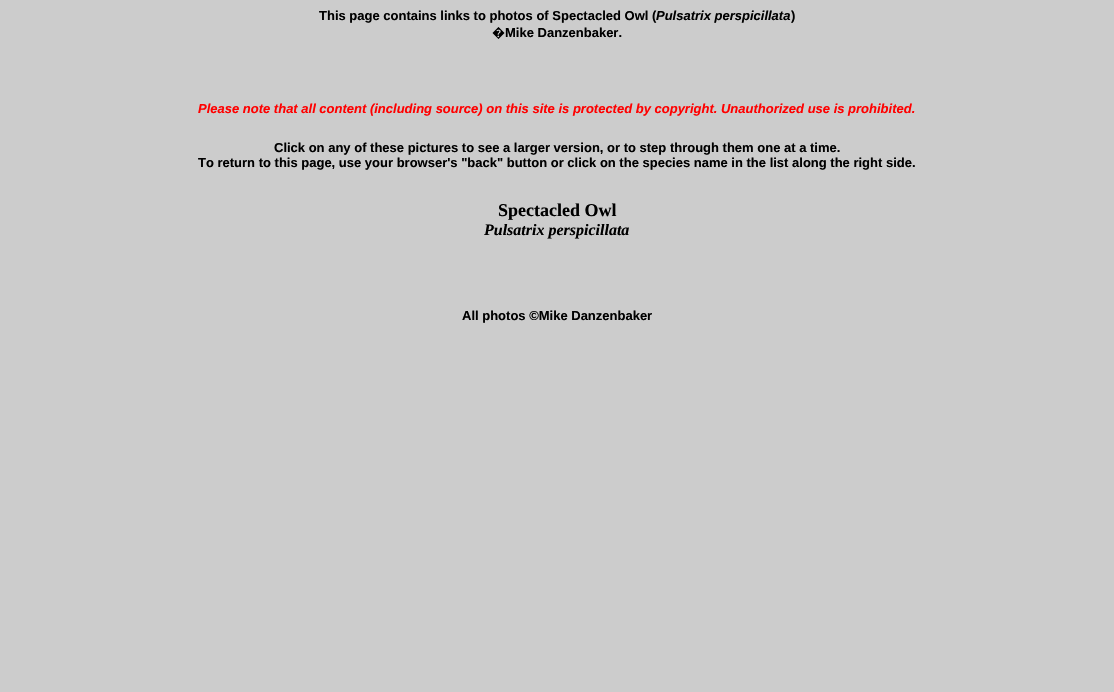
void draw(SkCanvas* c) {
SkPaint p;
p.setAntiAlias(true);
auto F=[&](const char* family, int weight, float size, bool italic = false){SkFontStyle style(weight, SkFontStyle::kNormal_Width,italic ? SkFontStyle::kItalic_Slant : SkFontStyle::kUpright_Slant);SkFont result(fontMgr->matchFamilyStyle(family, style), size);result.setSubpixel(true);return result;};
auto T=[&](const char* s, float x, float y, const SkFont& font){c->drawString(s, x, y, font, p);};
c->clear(0xffcccccc);
auto f1 = F("Liberation Sans",700,13);
p.setColor(0xff000000);
T("This page contains links to photos of Spectacled Owl (",319,20,f1);
auto f2 = F("Liberation Sans",700,13,true);
T("Pulsatrix perspicillata",656,20,f2);
T(")",791,20,f1);
auto f3 = F("Noto Sans",700,13);
T("�",492,37,f3);
T("Mike Danzenbaker.",505,37,f1);
p.setColor(0xffff0000);
T("Please note that all content (including source) on this site is protected by copyright. Unauthorized use is prohibited.",198,113,f2);
p.setColor(0xff000000);
T("Click on any of these pictures to see a larger version, or to step through them one at a time.",274,152,f1);
T("To return to this page, use your browser's \"back\" button or click on the species name in the list along the right side.",198,167,f1);
auto f4 = F("Liberation Serif",700,18);
T("Spectacled Owl",498,216,f4);
auto f5 = F("Liberation Serif",700,16,true);
T("Pulsatrix perspicillata",484,235,f5);
T("All photos ©Mike Danzenbaker",462,320,f1);
}
